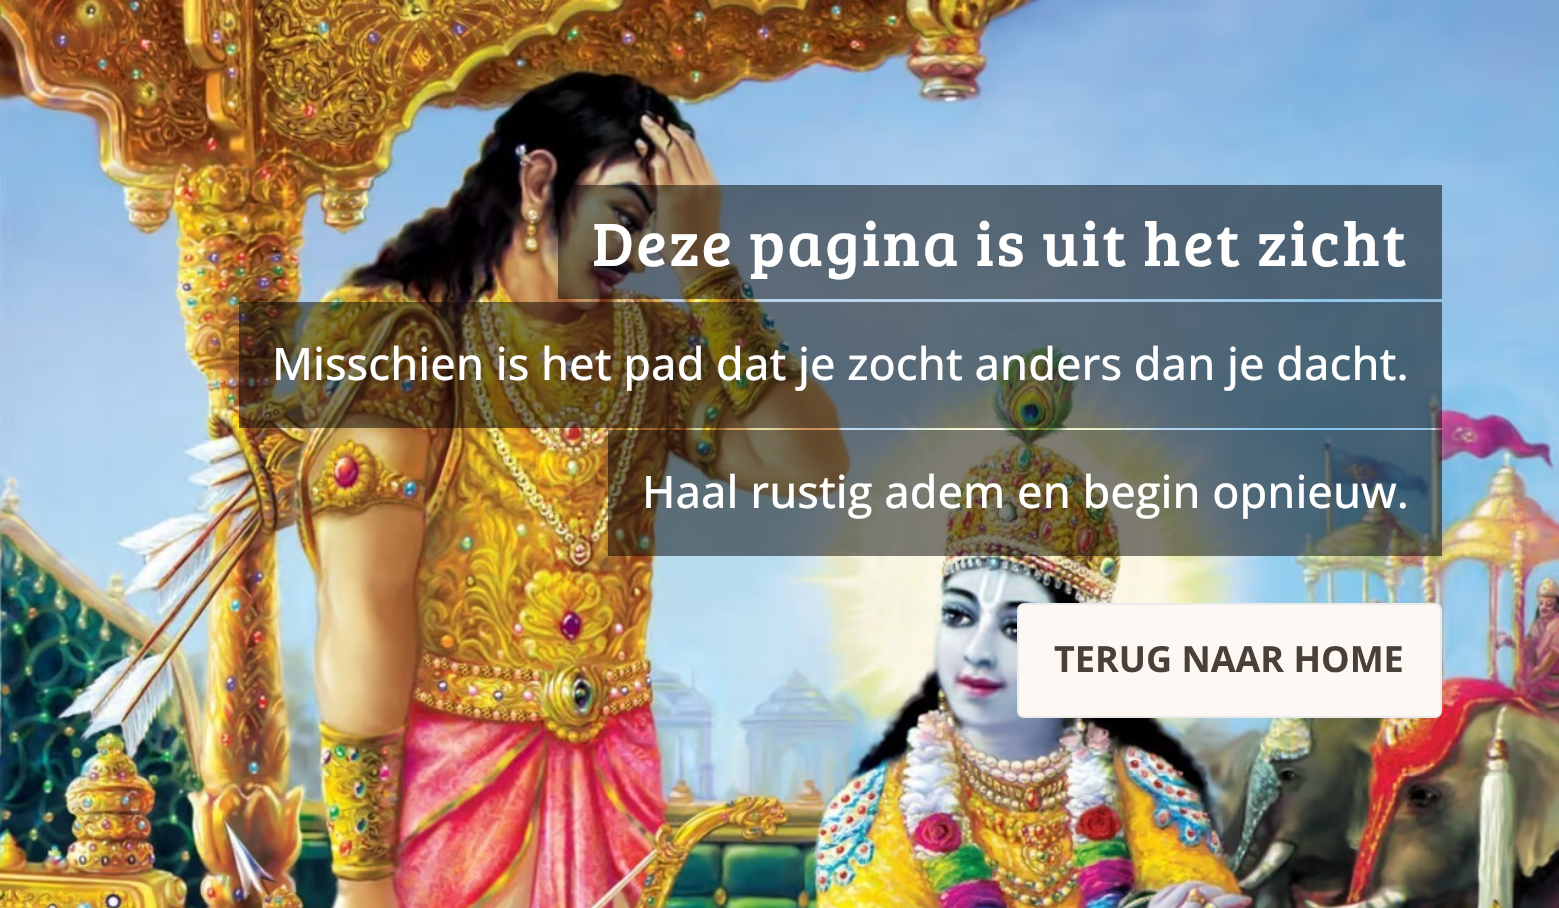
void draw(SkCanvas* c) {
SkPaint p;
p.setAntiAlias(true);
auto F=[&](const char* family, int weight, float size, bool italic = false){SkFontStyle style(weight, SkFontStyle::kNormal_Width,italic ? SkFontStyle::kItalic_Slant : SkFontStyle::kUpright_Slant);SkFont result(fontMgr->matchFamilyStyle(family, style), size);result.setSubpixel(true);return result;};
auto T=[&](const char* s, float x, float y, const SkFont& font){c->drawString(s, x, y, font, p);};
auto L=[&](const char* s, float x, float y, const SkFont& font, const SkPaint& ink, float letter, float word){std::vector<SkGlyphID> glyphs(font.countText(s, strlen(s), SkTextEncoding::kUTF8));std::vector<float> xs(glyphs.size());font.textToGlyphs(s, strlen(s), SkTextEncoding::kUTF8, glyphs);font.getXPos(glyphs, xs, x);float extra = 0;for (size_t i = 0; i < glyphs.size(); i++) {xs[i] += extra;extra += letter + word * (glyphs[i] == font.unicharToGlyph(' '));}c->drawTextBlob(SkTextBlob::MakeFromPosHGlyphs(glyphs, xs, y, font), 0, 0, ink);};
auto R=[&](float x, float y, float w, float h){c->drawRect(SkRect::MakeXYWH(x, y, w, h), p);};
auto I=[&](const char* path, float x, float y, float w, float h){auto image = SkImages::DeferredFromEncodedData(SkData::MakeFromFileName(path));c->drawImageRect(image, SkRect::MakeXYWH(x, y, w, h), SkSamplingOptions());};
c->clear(0xffffffff);
I("1.png",0,0,1559,908);
p.setColor(0x80000000);
R(558,185,884,114);
auto f1 = F("Bree Serif",400,63);
p.setColor(0xffffffff);
L("Deze pagina is uit het zicht",592,266,f1,p,2.25,0);
p.setColor(0x80000000);
R(239,302,1203,126);
auto f2 = F("Open Sans",500,45);
p.setColor(0xffffffff);
T("Misschien is het pad dat je zocht anders dan je dacht.",272,380,f2);
p.setColor(0x80000000);
R(608,430,834,126);
p.setColor(0xffffffff);
T("Haal rustig adem en begin opnieuw.",642,508,f2);
p.setColor(0xfffdf8f4);
c->drawRoundRect(SkRect::MakeXYWH(1018,604,423,113),6,6,p);
p.setStroke(true);
p.setStrokeWidth(2);
p.setColor(0xffebebeb);
c->drawRoundRect(SkRect::MakeXYWH(1018,604,423,113),6,6,p);
auto f3 = F("Open Sans",700,36);
p.setStroke(false);
p.setColor(0xff4a403a);
T("TERUG NAAR HOME",1054,672,f3);
}
